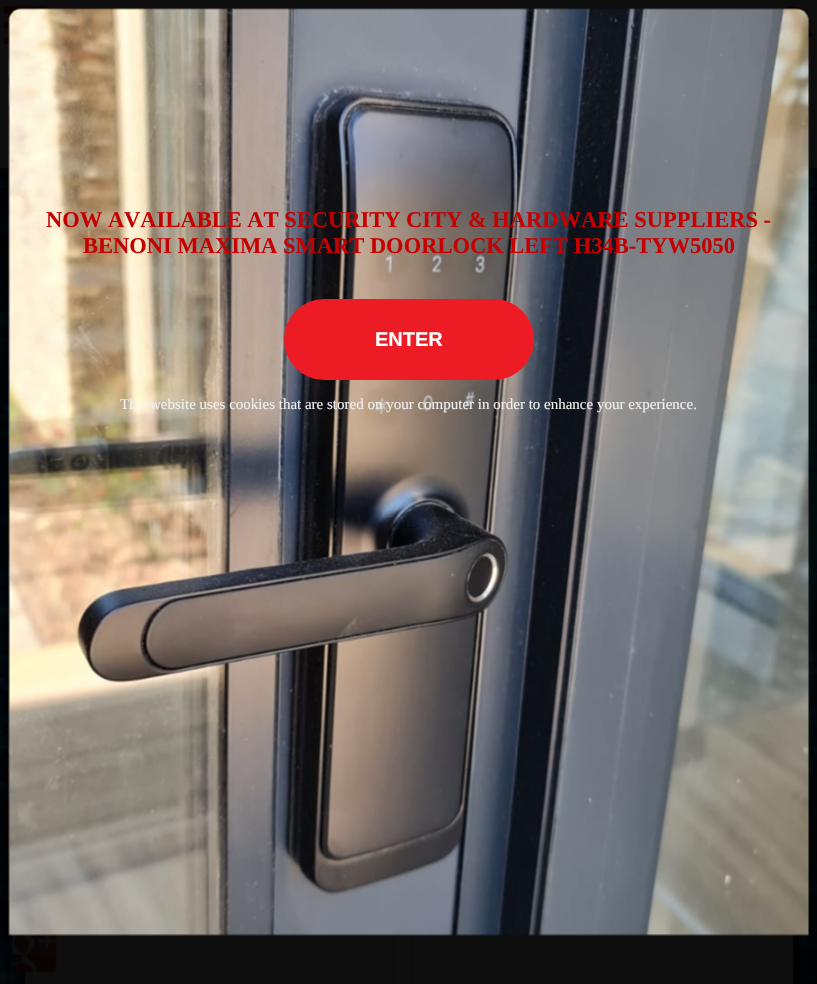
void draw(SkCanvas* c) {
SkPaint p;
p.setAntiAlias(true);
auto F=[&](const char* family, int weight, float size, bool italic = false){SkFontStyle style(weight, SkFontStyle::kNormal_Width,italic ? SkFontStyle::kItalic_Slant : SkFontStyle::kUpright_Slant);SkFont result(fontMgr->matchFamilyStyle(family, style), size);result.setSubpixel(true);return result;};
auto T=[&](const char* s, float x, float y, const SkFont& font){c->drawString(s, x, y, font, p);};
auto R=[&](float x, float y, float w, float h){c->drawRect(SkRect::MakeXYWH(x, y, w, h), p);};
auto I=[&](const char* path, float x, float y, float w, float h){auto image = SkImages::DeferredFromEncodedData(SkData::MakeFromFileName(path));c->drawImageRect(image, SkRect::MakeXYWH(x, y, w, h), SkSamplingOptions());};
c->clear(0xff0d0d0d);
I("1.png",0,166,817,818);
p.setColor(0xff0d0d0d);
R(25,167,768,817);
p.setStroke(true);
p.setStrokeWidth(1);
p.setColor(0xff0a0a0a);
c->drawRect(SkRect::MakeXYWH(154.5,-.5,239,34),p);
c->drawRect(SkRect::MakeXYWH(411.5,-.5,239,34),p);
c->drawRect(SkRect::MakeXYWH(154.5,751.5,239,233),p);
c->drawRect(SkRect::MakeXYWH(411.5,751.5,239,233),p);
p.setStroke(false);
p.setColor(0xf20d0d0d);
R(154,0,497,34);
I("2.png",3,5,45,40);
I("3.png",785,6,28,32);
I("5.png",12,934,45,39);
I("4.png",8,8,802,928);
auto f1 = F("Liberation Serif",700,22.5);
p.setColor(0xffc60000);
T("NOW AVAILABLE AT SECURITY CITY & HARDWARE SUPPLIERS -",46,227,f1);
T("BENONI MAXIMA SMART DOORLOCK LEFT H34B-TYW5050",83,253,f1);
p.setColor(0xffed1c24);
c->drawRoundRect(SkRect::MakeXYWH(285.5,300.5,247,78),39,39,p);
p.setStroke(true);
p.setStrokeWidth(3);
c->drawRoundRect(SkRect::MakeXYWH(285.5,300.5,247,78),39,39,p);
auto f2 = F("Liberation Sans",700,20);
p.setStroke(false);
p.setColor(0xffffffff);
T("ENTER",375,346,f2);
auto f3 = F("Liberation Serif",400,15);
p.setColor(0xfff0f0f0);
T("Th",120,409,f3);
T("website uses cookies that are stored on your computer in order to enhance your experience.",150,409,f3);
}
